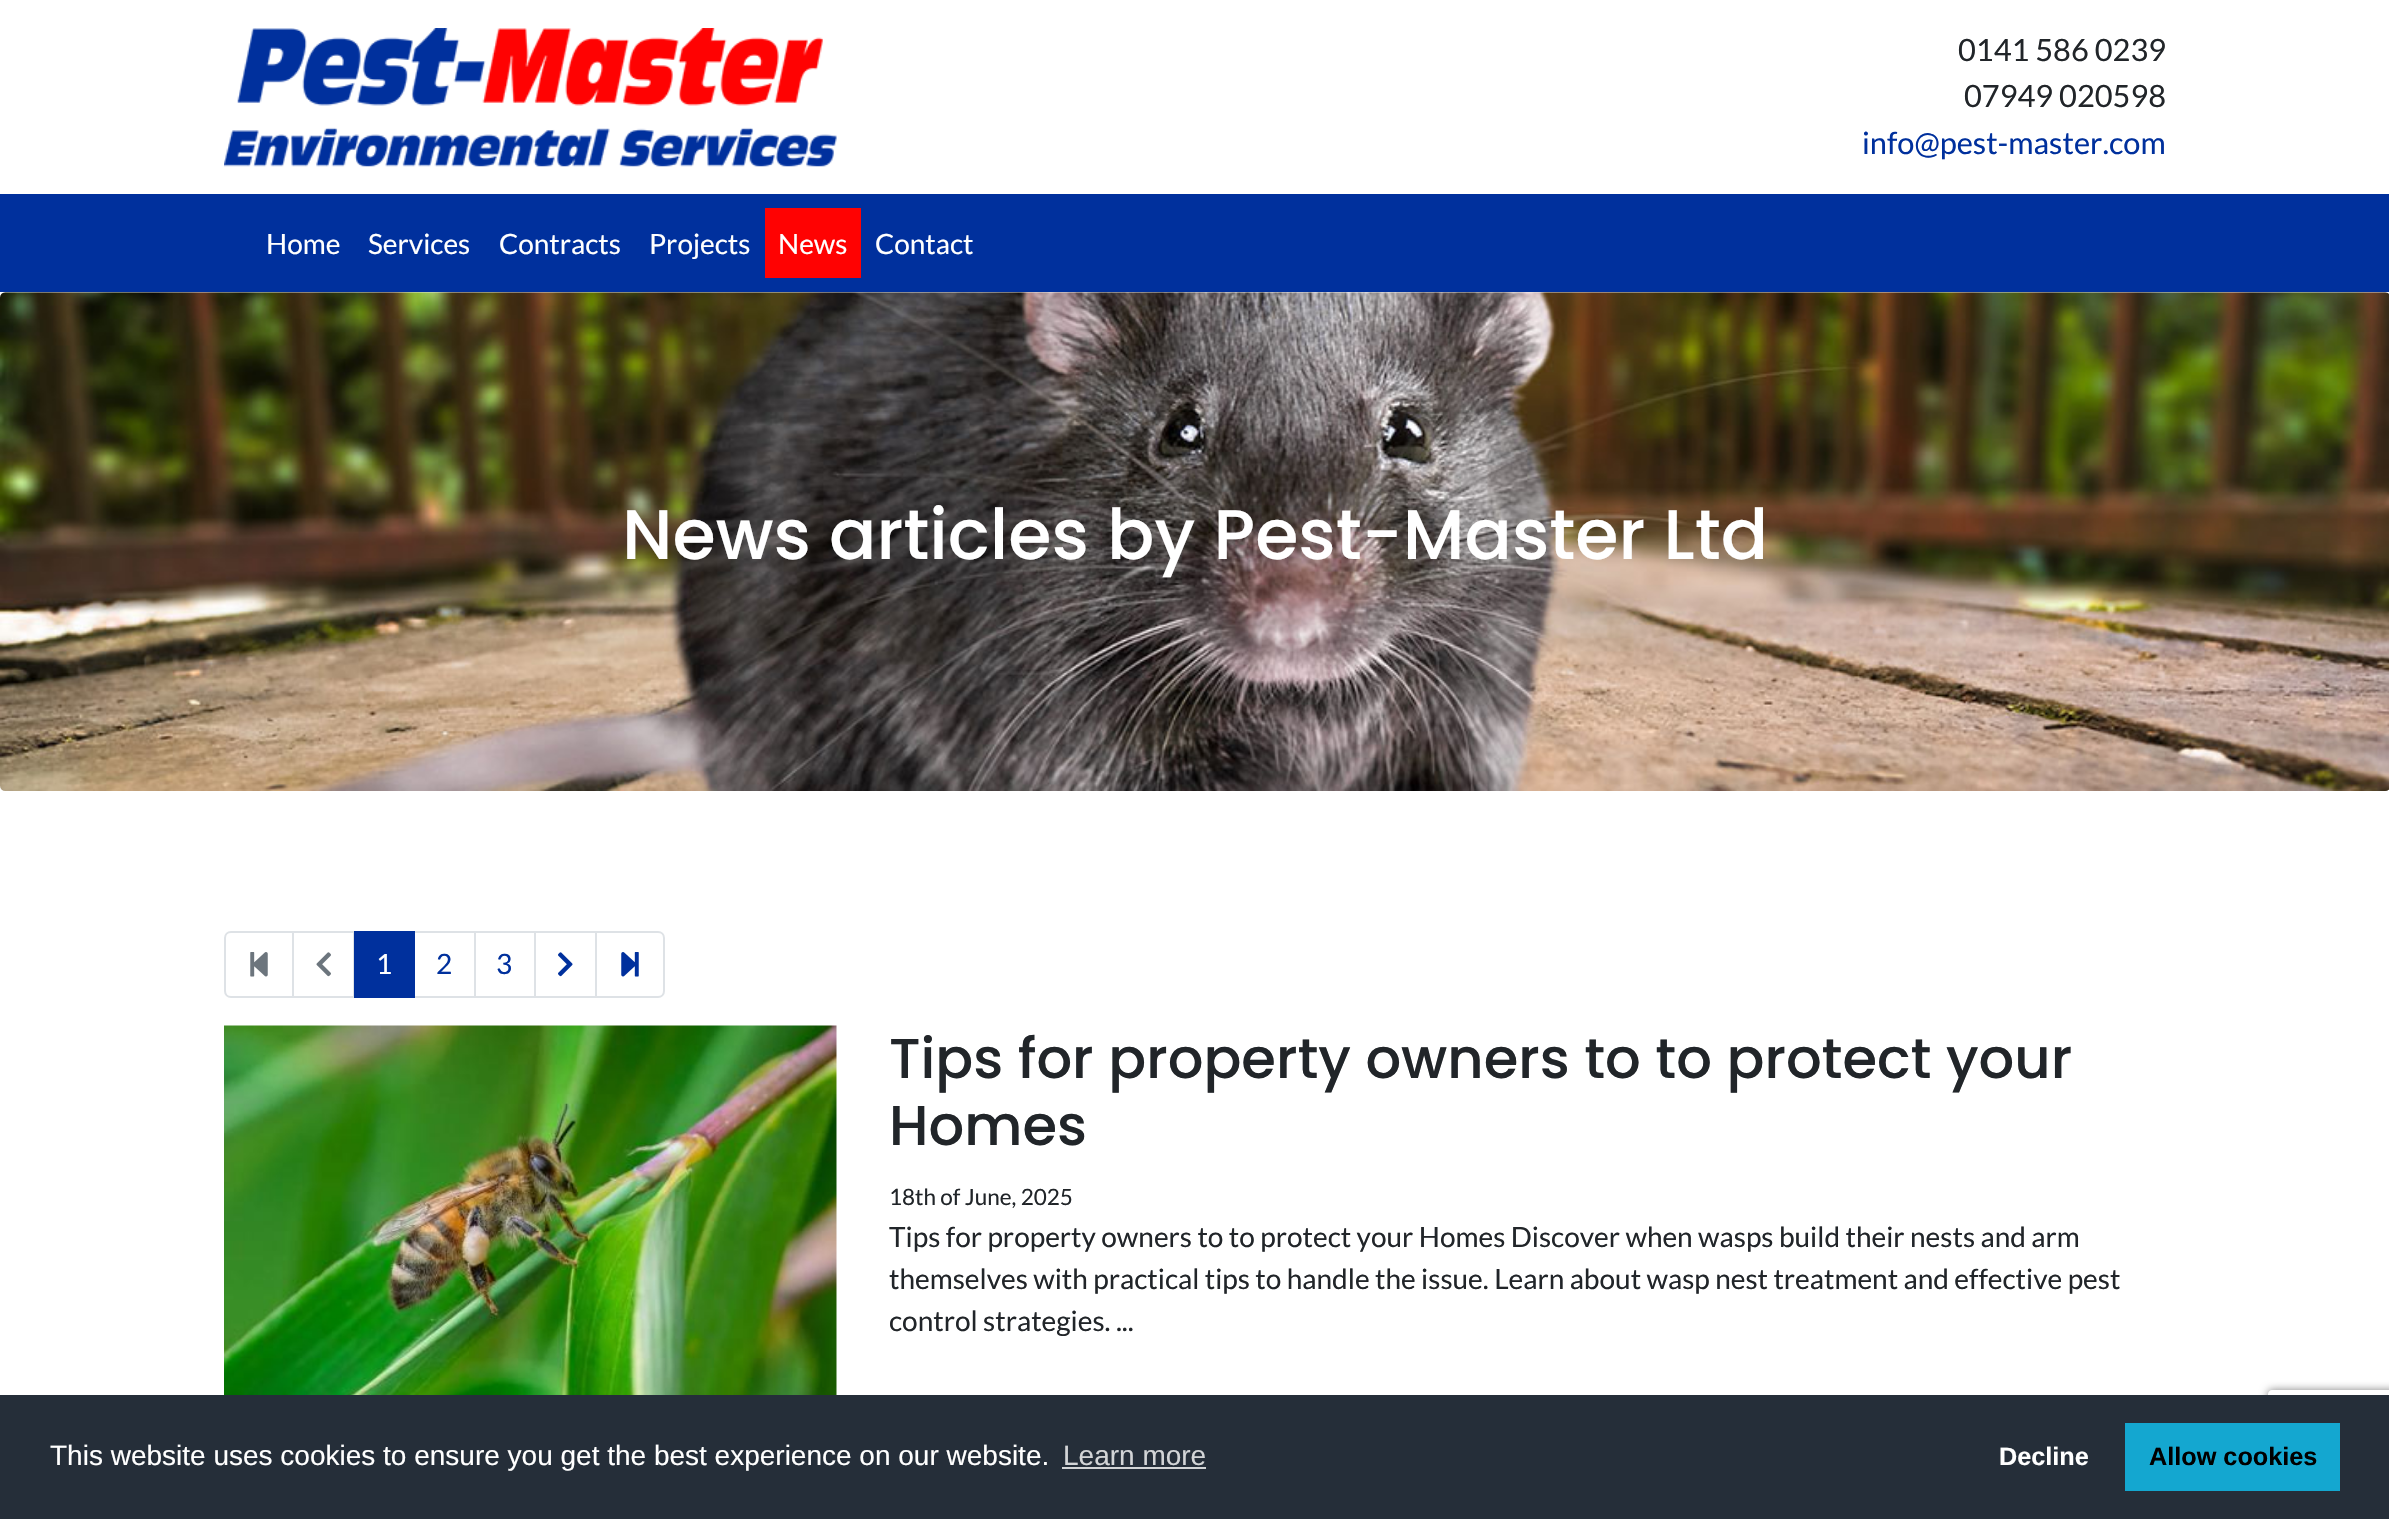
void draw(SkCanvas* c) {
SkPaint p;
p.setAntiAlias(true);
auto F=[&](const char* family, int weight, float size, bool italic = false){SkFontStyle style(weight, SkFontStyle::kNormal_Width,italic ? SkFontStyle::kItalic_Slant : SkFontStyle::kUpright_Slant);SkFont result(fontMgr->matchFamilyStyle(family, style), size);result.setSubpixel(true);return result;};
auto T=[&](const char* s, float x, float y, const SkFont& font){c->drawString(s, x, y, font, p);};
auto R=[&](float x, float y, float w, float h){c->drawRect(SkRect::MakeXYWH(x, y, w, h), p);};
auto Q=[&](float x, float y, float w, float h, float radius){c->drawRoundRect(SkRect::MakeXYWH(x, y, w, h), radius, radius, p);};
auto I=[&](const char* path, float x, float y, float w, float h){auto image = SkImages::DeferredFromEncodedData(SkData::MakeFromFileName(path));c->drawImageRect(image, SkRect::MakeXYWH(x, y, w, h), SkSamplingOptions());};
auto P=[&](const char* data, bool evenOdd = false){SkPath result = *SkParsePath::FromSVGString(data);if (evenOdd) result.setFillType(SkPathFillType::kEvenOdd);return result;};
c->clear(0xffffffff);
I("1.png",224,28,613,139);
auto f1 = F("Lato",400,30.75);
p.setColor(0xff212529);
T("0141 586 0239",1958,61,f1);
T("07949 020598",1964,107,f1);
p.setColor(0xff00309d);
T("info@pest-master.com",1862,154,f1);
R(0,194,2389,98);
auto f2 = F("Lato",400,28);
p.setColor(0xffffffff);
T("Home",266,254,f2);
T("Services",368,254,f2);
T("Contracts",499,254,f2);
T("Projects",649,254,f2);
p.setColor(0xffff0202);
R(765,208,96,70);
p.setColor(0xffffffff);
T("News",778,254,f2);
T("Contact",875,254,f2);
p.setColor(0xffeeeeee);
Q(0,292,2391,499,7);
I("2.png",0,292,2389,499);
auto f3 = F("Poppins",500,70);
p.setColor(0xffffffff);
T("News articles by Pest-Master Ltd",622,559,f3);
p.setStroke(true);
p.setStrokeWidth(2);
p.setColor(0xffdee2e6);
c->drawPath(P("M231 932h62v65h-62c-3.5 0-6-2.5-6-6v-53c0-3.5 2.5-6 6-6z"),p);
I("3.png",250,952,18,25);
c->drawRect(SkRect::MakeXYWH(293,932,61,65),p);
I("4.png",316,952,15,25);
c->drawRect(SkRect::MakeXYWH(414,932,61,65),p);
p.setStroke(false);
p.setColor(0xff00309d);
R(354,931,61,67);
p.setColor(0xffffffff);
T("1",376,974,f2);
p.setColor(0xff00309d);
T("2",436,974,f2);
p.setStroke(true);
p.setColor(0xffdee2e6);
c->drawRect(SkRect::MakeXYWH(475,932,60,65),p);
p.setStroke(false);
p.setColor(0xff00309d);
T("3",496,974,f2);
p.setStroke(true);
p.setColor(0xffdee2e6);
c->drawRect(SkRect::MakeXYWH(535,932,61,65),p);
I("5.png",558,952,15,25);
p.setStroke(false);
p.setColor(0xffffffff);
c->drawPath(P("M596 932h62c3.5 0 6 2.5 6 6v53c0 3.5-2.5 6-6 6h-62z"),p);
p.setStroke(true);
p.setColor(0xffdee2e6);
c->drawPath(P("M596 932h62c3.5 0 6 2.5 6 6v53c0 3.5-2.5 6-6 6h-62z"),p);
I("6.png",621,952,18,25);
I("7.png",224,1025,613,370);
auto f4 = F("Poppins",500,56);
p.setStroke(false);
p.setColor(0xff212529);
T("Tips for property owners to to protect your",889,1078,f4);
T("Homes",889,1145,f4);
auto f5 = F("Lato",400,22.5);
T("18th of June, 2025",889,1205,f5);
T("Tips for property owners to to protect your Homes Discover when wasps build their nests and arm",889,1247,f2);
T("themselves with practical tips to handle the issue. Learn about wasp nest treatment and effective pest",889,1289,f2);
T("control strategies. ...",889,1331,f2);
c->save();
c->clipPath(P("M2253 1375h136v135h-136zm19 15h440c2 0 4 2 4 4v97c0 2-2 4-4 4h-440c-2 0-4-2-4-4v-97c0-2 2-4 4-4z",true),true);
p.setColor(0xff808080);
p.setMaskFilter(SkMaskFilter::MakeBlur(kNormal_SkBlurStyle, 4.5));
c->drawRoundRect(SkRect::MakeXYWH(2268,1390,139,105),4,4,p);
p.setMaskFilter(nullptr);
c->restore();
p.setColor(0xff252e39);
R(0,1395,2389,124);
auto f6 = F("Liberation Sans",400,28);
p.setColor(0xffffffff);
T("This website uses cookies to ensure you get the best experience on our website.",50,1465,f6);
p.setColor(0xffd3d5d7);
T("Learn more",1063,1465,f6);
R(1062,1467,144,2);
auto f7 = F("Liberation Sans",700,25.25);
p.setColor(0xffffffff);
T("Decline",1999,1465,f7);
p.setColor(0xff14a7d0);
R(2125,1423,215,68);
p.setColor(0xff000000);
T("Allow cookies",2149,1465,f7);
}
